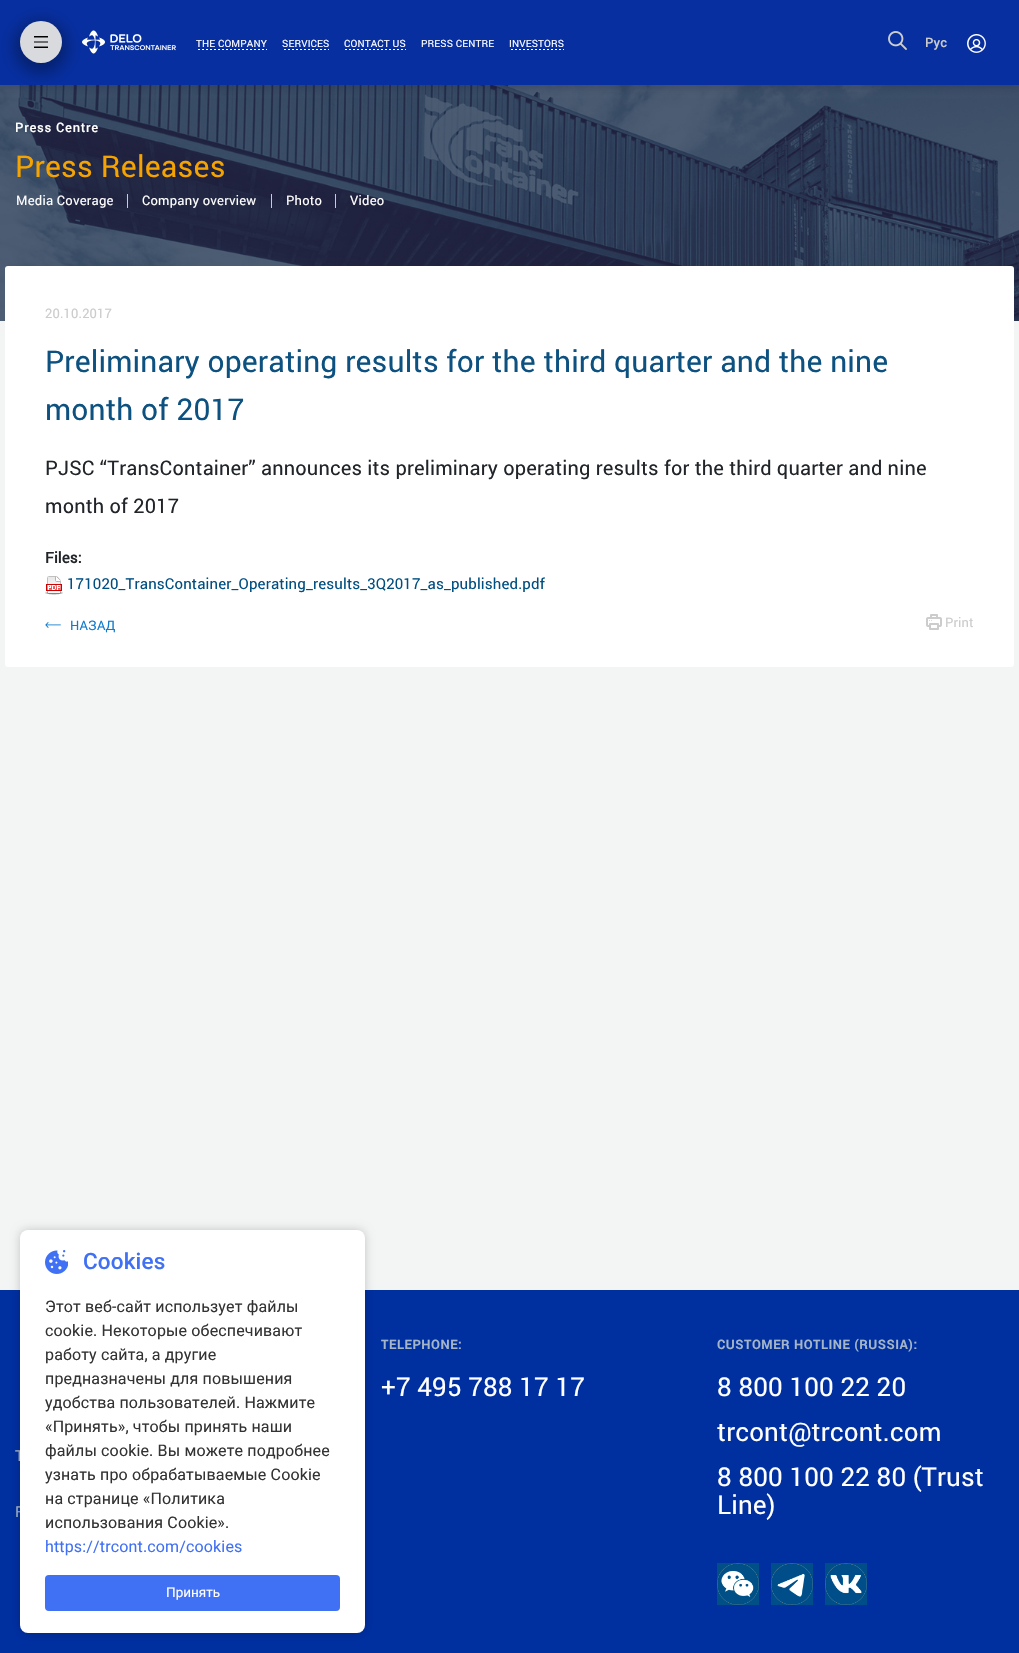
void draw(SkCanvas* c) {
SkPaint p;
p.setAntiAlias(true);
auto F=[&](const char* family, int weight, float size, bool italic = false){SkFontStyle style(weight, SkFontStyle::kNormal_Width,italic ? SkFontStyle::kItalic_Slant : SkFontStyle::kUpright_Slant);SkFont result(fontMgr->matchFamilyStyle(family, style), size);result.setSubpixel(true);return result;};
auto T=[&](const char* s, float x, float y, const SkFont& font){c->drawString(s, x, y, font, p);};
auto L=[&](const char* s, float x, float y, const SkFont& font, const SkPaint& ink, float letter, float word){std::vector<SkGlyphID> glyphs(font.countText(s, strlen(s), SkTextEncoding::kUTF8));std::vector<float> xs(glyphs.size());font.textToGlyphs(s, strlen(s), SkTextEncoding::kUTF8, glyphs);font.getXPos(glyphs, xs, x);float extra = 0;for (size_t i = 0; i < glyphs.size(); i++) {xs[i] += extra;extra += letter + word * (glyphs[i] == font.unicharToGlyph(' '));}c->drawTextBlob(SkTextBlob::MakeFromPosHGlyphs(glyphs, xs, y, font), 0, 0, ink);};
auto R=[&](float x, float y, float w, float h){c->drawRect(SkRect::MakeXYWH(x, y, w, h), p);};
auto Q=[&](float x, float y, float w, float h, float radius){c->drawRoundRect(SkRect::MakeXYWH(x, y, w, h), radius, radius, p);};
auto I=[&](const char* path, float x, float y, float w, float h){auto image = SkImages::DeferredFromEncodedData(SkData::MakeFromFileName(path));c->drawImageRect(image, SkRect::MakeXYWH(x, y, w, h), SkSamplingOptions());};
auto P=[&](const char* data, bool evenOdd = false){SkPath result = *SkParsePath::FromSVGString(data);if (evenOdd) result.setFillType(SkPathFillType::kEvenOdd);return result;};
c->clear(0xfff3f4f4);
I("1.png",0,85,1019,236);
p.setColor(0x331e1f3c);
p.setMaskFilter(SkMaskFilter::MakeBlur(kNormal_SkBlurStyle, 3.5));
c->drawRect(SkRect::MakeXYWH(0,3,1019,85),p);
p.setMaskFilter(nullptr);
p.setColor(0xff072fa0);
R(0,0,1019,85);
I("2.png",82,30,94,24);
p.setColor(0x4d000000);
p.setMaskFilter(SkMaskFilter::MakeBlur(kNormal_SkBlurStyle, 7.5));
c->drawRoundRect(SkRect::MakeXYWH(14,20,54,54),27,27,p);
p.setMaskFilter(nullptr);
p.setColor(0xffd8dadd);
c->drawCircle(41,42,21,p);
p.setColor(0xff000000);
c->drawPath(P("M34 48v-1.5h14v1.5zm0-5.5v-1h14v1zm0-5v-1.5h14v1.5z"),p);
auto f1 = F("Roboto",400,10);
p.setColor(0xffffffff);
L("THE COMPANY",196,47,f1,p,.15,0);
I("3.png",198,49,69,1);
L("SERVICES",282,47,f1,p,.15,0);
I("4.png",284,49,45,1);
L("CONTACT US",344,47,f1,p,.15,0);
I("5.png",345,49,61,1);
L("PRESS CENTRE",421,47,f1,p,.15,0);
L("INVESTORS",509,47,f1,p,.15,0);
I("6.png",511,49,53,1);
I("7.png",888,31,19,19);
auto f2 = F("Roboto",500,13);
p.setColor(0xffcccccc);
L("Рус",925,47,f2,p,.15,0);
I("8.png",967,34,19,19);
p.setColor(0xffffffff);
L("Press Centre",15,132,f2,p,.75,0);
auto f3 = F("Roboto",400,30);
p.setColor(0xfff5a300);
L("Press Releases",15,177,f3,p,.25,0);
auto f4 = F("Roboto",400,13);
p.setColor(0xffffffff);
L("Media Coverage",16,205,f4,p,.25,0);
p.setColor(0xffcccccc);
R(127,194,1,14);
p.setColor(0xffffffff);
L("Сompany overview",142,205,f4,p,.25,0);
p.setColor(0xffcccccc);
R(271,194,1,14);
p.setColor(0xffffffff);
L("Photo",286,205,f4,p,.25,0);
p.setColor(0xffcccccc);
R(335,194,1,14);
p.setColor(0xffffffff);
L("Video",350,205,f4,p,.25,0);
Q(5,266,1009,401,3);
p.setColor(0xffcccccc);
L("20.10.2017",45,318,f4,p,.15,0);
p.setColor(0xff0c5180);
L("Preliminary operating results for the third quarter and the nine",45,372,f3,p,.15,0);
L("month of 2017",45,420,f3,p,.15,0);
auto f5 = F("Roboto",400,20);
p.setColor(0xff212529);
L("PJSC “TransContainer” announces its preliminary operating results for the third quarter and nine",45,475,f5,p,.18,0);
L("month of 2017",45,513,f5,p,.18,0);
auto f6 = F("Roboto",700,15);
L("Files:",45,563,f6,p,.15,0);
I("9.png",45,576,18,19);
auto f7 = F("Roboto",400,15);
p.setColor(0xff004f81);
L("171020_TransContainer_Operating_results_3Q2017_as_published.pdf",67,589,f7,p,.15,0);
I("10.png",45,622,16,6);
p.setColor(0xff117bcd);
L("НАЗАД",70,630,f4,p,.15,0);
I("11.png",926,614,16,16);
p.setColor(0xffcccccc);
L("Print",945,627,f4,p,.15,0);
p.setColor(0xff002fa0);
R(0,1290,1019,363);
auto f8 = F("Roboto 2",700,13);
p.setColor(0xffa3b5c7);
L("TELEPHONE:",381,1349,f8,p,.5,0);
auto f9 = F("Roboto",400,26);
p.setColor(0xffffffff);
L("+7 495 788 17 17",381,1396,f9,p,.15,0);
p.setColor(0xffa3b5c7);
L("CUSTOMER HOTLINE (RUSSIA):",717,1349,f8,p,.5,0);
p.setColor(0xffffffff);
L("8 800 100 22 20",717,1396,f9,p,.15,0);
L("trcont@trcont.com",717,1441,f9,p,.15,0);
L("8 800 100 22 80 (Trust",717,1486,f9,p,.15,0);
L("Line)",717,1514,f9,p,.15,0);
I("12.png",717,1563,42,42);
I("13.png",771,1563,42,42);
I("14.png",825,1563,42,42);
p.setColor(0xffa3b5c7);
L("T",15,1461,f7,p,.15,0);
L("F",15,1517,f7,p,.15,0);
p.setColor(0x33000000);
p.setMaskFilter(SkMaskFilter::MakeBlur(kNormal_SkBlurStyle, 5));
c->drawRoundRect(SkRect::MakeXYWH(20,1230,345,403),8,8,p);
p.setMaskFilter(nullptr);
p.setColor(0xffffffff);
Q(20,1230,345,403,8);
I("15.png",45,1250,23,24);
auto f10 = F("Roboto 2",500,22.5);
p.setColor(0xff4070f4);
L("Cookies",83,1269,f10,p,.15,0);
auto f11 = F("Roboto 2",400,16);
p.setColor(0xff333333);
L("Этот веб-сайт использует файлы",45,1312,f11,p,.15,0);
L("cookie. Некоторые обеспечивают",45,1336,f11,p,.15,0);
L("работу сайта, а другие",45,1360,f11,p,.15,0);
L("предназначены для повышения",45,1384,f11,p,.15,0);
L("удобства пользователей. Нажмите",45,1408,f11,p,.15,0);
L("«Принять», чтобы принять наши",45,1432,f11,p,.15,0);
L("файлы cookie. Вы можете подробнее",45,1456,f11,p,.15,0);
L("узнать про обрабатываемые Cookie",45,1480,f11,p,.15,0);
L("на странице «Политика",45,1504,f11,p,.15,0);
L("использования Сookie».",45,1528,f11,p,.15,0);
p.setColor(0xff4070f4);
L("https://trcont.com/cookies",45,1552,f11,p,.15,0);
Q(45,1575,295,36,4);
auto f12 = F("Roboto 2",400,13.5);
p.setColor(0xffffffff);
T("Принять",166,1597,f12);
}
